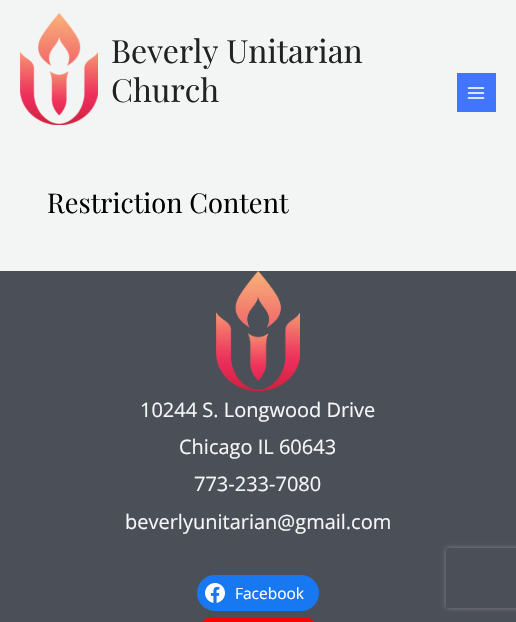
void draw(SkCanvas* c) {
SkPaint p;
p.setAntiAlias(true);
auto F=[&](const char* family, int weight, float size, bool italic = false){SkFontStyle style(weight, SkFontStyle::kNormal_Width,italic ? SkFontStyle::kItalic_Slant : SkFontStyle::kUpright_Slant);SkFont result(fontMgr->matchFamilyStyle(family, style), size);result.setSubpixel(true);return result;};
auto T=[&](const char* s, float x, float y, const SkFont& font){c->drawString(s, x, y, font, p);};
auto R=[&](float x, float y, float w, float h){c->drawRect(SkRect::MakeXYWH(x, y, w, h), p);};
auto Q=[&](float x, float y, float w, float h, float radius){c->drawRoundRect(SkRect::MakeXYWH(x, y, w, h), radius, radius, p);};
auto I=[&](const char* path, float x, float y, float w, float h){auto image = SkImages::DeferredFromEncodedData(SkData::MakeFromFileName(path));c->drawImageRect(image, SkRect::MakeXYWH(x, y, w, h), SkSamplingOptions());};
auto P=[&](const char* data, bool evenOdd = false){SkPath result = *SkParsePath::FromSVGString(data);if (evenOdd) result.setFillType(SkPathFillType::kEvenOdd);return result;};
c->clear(0xfff3f5f5);
I("1.png",20,13,78,112);
auto f1 = F("Playfair Display",400,32);
p.setColor(0xff222222);
T("Beverly Unitarian",111,63,f1);
T("Church",111,102,f1);
p.setColor(0xff4175fc);
R(457,73,39,39);
I("2.png",467,87,18,12);
auto f2 = F("Playfair Display",400,27.25);
p.setColor(0xff000000);
T("Restriction Content",47,213,f2);
p.setColor(0xff4b4f58);
R(0,271,516,351);
I("3.png",216,271,84,120);
auto f3 = F("Open Sans",400,20);
p.setColor(0xfff6f7f8);
T("10244 S. Longwood Drive",140,417,f3);
T("Chicago IL 60643",179,454,f3);
T("773-233-7080",194,491,f3);
T("beverlyunitarian@gmail.com",125,529,f3);
p.setColor(0xff1778f2);
Q(197,575,122,36,18);
I("4.png",205,583,20,20);
auto f4 = F("Open Sans",400,15.5);
p.setColor(0xffffffff);
T("Facebook",235,599,f4);
p.setColor(0xffff0000);
Q(200,617,116,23,18);
c->save();
c->clipPath(P("M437 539h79v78h-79zm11 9h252c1 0 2 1 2 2v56c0 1-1 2-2 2h-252c-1 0-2-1-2-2v-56c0-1 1-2 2-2z",true),true);
p.setColor(0xff808080);
p.setMaskFilter(SkMaskFilter::MakeBlur(kNormal_SkBlurStyle, 2.5));
c->drawRoundRect(SkRect::MakeXYWH(446,548,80,60),2,2,p);
p.setMaskFilter(nullptr);
c->restore();
}
